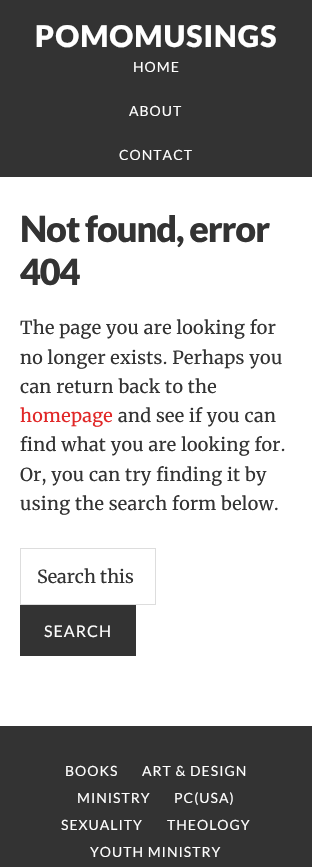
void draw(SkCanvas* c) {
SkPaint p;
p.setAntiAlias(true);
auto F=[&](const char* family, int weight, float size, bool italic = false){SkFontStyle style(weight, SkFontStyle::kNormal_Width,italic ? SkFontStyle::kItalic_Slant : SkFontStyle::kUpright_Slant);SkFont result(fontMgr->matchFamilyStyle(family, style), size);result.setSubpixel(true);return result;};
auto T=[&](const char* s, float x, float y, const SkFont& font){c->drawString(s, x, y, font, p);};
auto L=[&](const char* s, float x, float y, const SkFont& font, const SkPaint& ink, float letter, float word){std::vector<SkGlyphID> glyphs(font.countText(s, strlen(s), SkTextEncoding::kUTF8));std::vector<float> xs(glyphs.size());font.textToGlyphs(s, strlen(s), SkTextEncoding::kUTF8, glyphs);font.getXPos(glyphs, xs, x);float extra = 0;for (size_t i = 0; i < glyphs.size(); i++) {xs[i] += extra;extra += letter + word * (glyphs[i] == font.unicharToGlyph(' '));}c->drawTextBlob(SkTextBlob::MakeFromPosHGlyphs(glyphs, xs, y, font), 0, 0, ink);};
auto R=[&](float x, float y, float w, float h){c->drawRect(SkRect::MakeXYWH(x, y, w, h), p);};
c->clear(0xffffffff);
p.setColor(0xff333333);
R(0,0,312,177);
auto f1 = F("Lato",900,30);
p.setColor(0xffffffff);
L("POMOMUSINGS",35,47,f1,p,1,0);
auto f2 = F("Lato",400,14);
L("HOME",133,72,f2,p,1,0);
L("ABOUT",129,116,f2,p,1,0);
L("CONTACT",119,160,f2,p,1,0);
auto f3 = F("Lato",900,36);
p.setColor(0xff333333);
L("Not found, error",20,242,f3,p,-1.1,0);
L("404",20,285,f3,p,-1.1,0);
auto f4 = F("Merriweather",400,18);
L("The page you are looking for",20,334,f4,p,.3,0);
L("no longer exists. Perhaps you",20,364,f4,p,.3,0);
L("can return back to the",20,393,f4,p,.3,0);
p.setColor(0xffe12727);
L("homepage",20,422,f4,p,.3,0);
p.setColor(0xff333333);
L("and see if you can",118,422,f4,p,.3,0);
L("find what you are looking for.",20,451,f4,p,.3,0);
L("Or, you can try finding it by",20,481,f4,p,.3,0);
L("using the search form below.",20,510,f4,p,.3,0);
p.setStroke(true);
p.setStrokeWidth(1);
p.setColor(0xffdddddd);
c->drawRect(SkRect::MakeXYWH(20.5,548.5,135,56),p);
p.setStroke(false);
p.setColor(0xff333333);
T("Search this",37,583,f4);
R(20,605,116,51);
auto f5 = F("Lato",400,16);
p.setColor(0xffffffff);
L("SEARCH",44,637,f5,p,1,0);
p.setColor(0xff333333);
R(0,726,312,141);
p.setColor(0xffffffff);
L("BOOKS",65,776,f2,p,1,0);
L("ART & DESIGN",142,776,f2,p,1,0);
L("MINISTRY",77,803,f2,p,1,0);
L("PC(USA)",174,803,f2,p,1,0);
L("SEXUALITY",61,830,f2,p,1,0);
L("THEOLOGY",167,830,f2,p,1,0);
L("YOUTH MINISTRY",90,857,f2,p,1,0);
}
